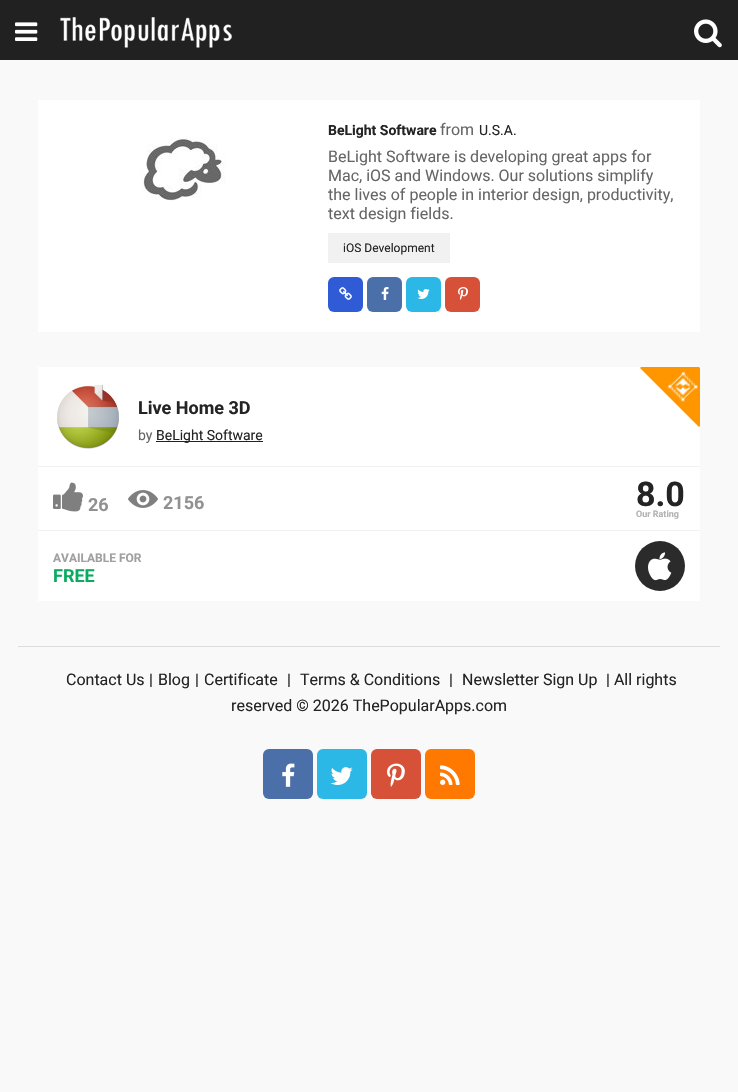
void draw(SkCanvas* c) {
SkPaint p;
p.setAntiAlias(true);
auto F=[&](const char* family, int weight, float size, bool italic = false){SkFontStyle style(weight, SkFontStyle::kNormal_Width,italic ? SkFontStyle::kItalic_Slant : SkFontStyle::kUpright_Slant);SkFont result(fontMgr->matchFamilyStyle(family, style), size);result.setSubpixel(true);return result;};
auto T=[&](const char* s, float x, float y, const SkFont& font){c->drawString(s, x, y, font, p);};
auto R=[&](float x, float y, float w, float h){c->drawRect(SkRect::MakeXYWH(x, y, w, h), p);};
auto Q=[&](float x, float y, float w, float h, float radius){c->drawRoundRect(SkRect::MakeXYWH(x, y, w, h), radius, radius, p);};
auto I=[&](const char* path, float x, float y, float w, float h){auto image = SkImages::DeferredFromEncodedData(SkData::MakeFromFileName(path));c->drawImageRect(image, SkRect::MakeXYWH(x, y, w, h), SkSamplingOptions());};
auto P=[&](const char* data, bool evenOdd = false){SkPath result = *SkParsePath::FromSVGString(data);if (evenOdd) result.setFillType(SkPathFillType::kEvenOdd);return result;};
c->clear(0xfff9f9f9);
p.setColor(0xff212121);
R(0,0,738,60);
I("1.png",15,22,23,19);
I("2.png",60,17,172,31);
I("3.png",694,19,28,29);
p.setColor(0xffffffff);
R(38,100,662,232);
I("4.png",141,137,85,64);
auto f1 = F("Roboto",700,14);
p.setColor(0xff242424);
T("BeLight Software",328,135,f1);
auto f2 = F("Roboto",400,16);
p.setColor(0xff666666);
T("from",440,135,f2);
auto f3 = F("Roboto",400,14);
p.setColor(0xff242424);
T("U.S.A.",479,135,f3);
p.setColor(0xff666666);
T("BeLight Software is developing great apps for",328,162,f2);
T("Mac, iOS and Windows. Our solutions simplify",328,181,f2);
T("the lives of people in interior design, productivity,",328,200,f2);
T("text design fields.",328,219,f2);
p.setColor(0xfff1f1f1);
R(328,233,122,30);
auto f4 = F("Roboto",400,12);
p.setColor(0xff242424);
T("iOS Development",343,252,f4);
p.setColor(0xff305bd6);
Q(328,277,35,35,6);
I("5.png",339,287,13,13);
p.setColor(0xff4b6fa9);
Q(367,277,35,35,6);
I("6.png",381,287,8,13);
p.setColor(0xff2bb8e6);
Q(406,277,35,35,6);
I("7.png",417,289,13,10);
p.setColor(0xffd65137);
Q(445,277,35,35,6);
I("8.png",458,287,10,13);
p.setColor(0xffffffff);
R(38,367,662,234);
I("9.png",57,385,62,64);
auto f5 = F("Roboto",700,18);
p.setColor(0xff242424);
T("Live Home 3D",138,414,f5);
p.setColor(0xff666666);
T("by",138,440,f3);
p.setColor(0xff222222);
R(156,441,107,1);
p.setColor(0xff242424);
T("BeLight Software",156,440,f3);
c->save();
c->clipRect(SkRect::MakeXYWH(38,367,662,234));
p.setColor(0xffff9600);
c->drawPath(P("M670 338l59 59l-30 30l-59-59z"),p);
c->restore();
I("10.png",667,371,31,31);
p.setColor(0xfff1f1f1);
R(38,466,662,1);
R(38,530,662,1);
I("11.png",53,482,30,30);
p.setColor(0xff919191);
T("26",88,511,f5);
I("12.png",128,490,30,18);
T("2156",163,509,f5);
auto f6 = F("Roboto",700,34);
p.setColor(0xff242424);
T("8.0",636,506,f6);
auto f7 = F("Roboto",700,9);
p.setColor(0xffb3b3b3);
T("Our Rating",636,517,f7);
auto f8 = F("Roboto",700,12);
p.setColor(0xffa0a0a0);
T("AVAILABLE FOR",53,562,f8);
p.setColor(0xff0aaa61);
T("FREE",53,582,f5);
p.setColor(0xff2b2b2b);
c->drawCircle(660,566,25,p);
I("13.png",648,552,24,29);
p.setColor(0xffdddddd);
R(18,646,702,1);
p.setColor(0xff242424);
T("Contact Us",66,685,f2);
T("|",149,685,f2);
T("Blog",158,685,f2);
T("|",195,685,f2);
T("Certificate",204,685,f2);
T("|",287,685,f2);
T("Terms & Conditions",300,685,f2);
T("|",449,685,f2);
T("Newsletter Sign Up",462,685,f2);
T("| All rights",606,685,f2);
T("reserved © 2026 ThePopularApps.com",231,711,f2);
p.setColor(0xff4b6fa9);
Q(263,749,50,50,6);
I("14.png",282,763,13,24);
p.setColor(0xff2bb8e6);
Q(317,749,50,50,6);
I("15.png",330,767,23,18);
p.setColor(0xffd65137);
Q(371,749,50,50,6);
I("16.png",387,763,18,24);
p.setColor(0xffff7800);
Q(425,749,50,50,6);
I("17.png",440,765,20,20);
}
